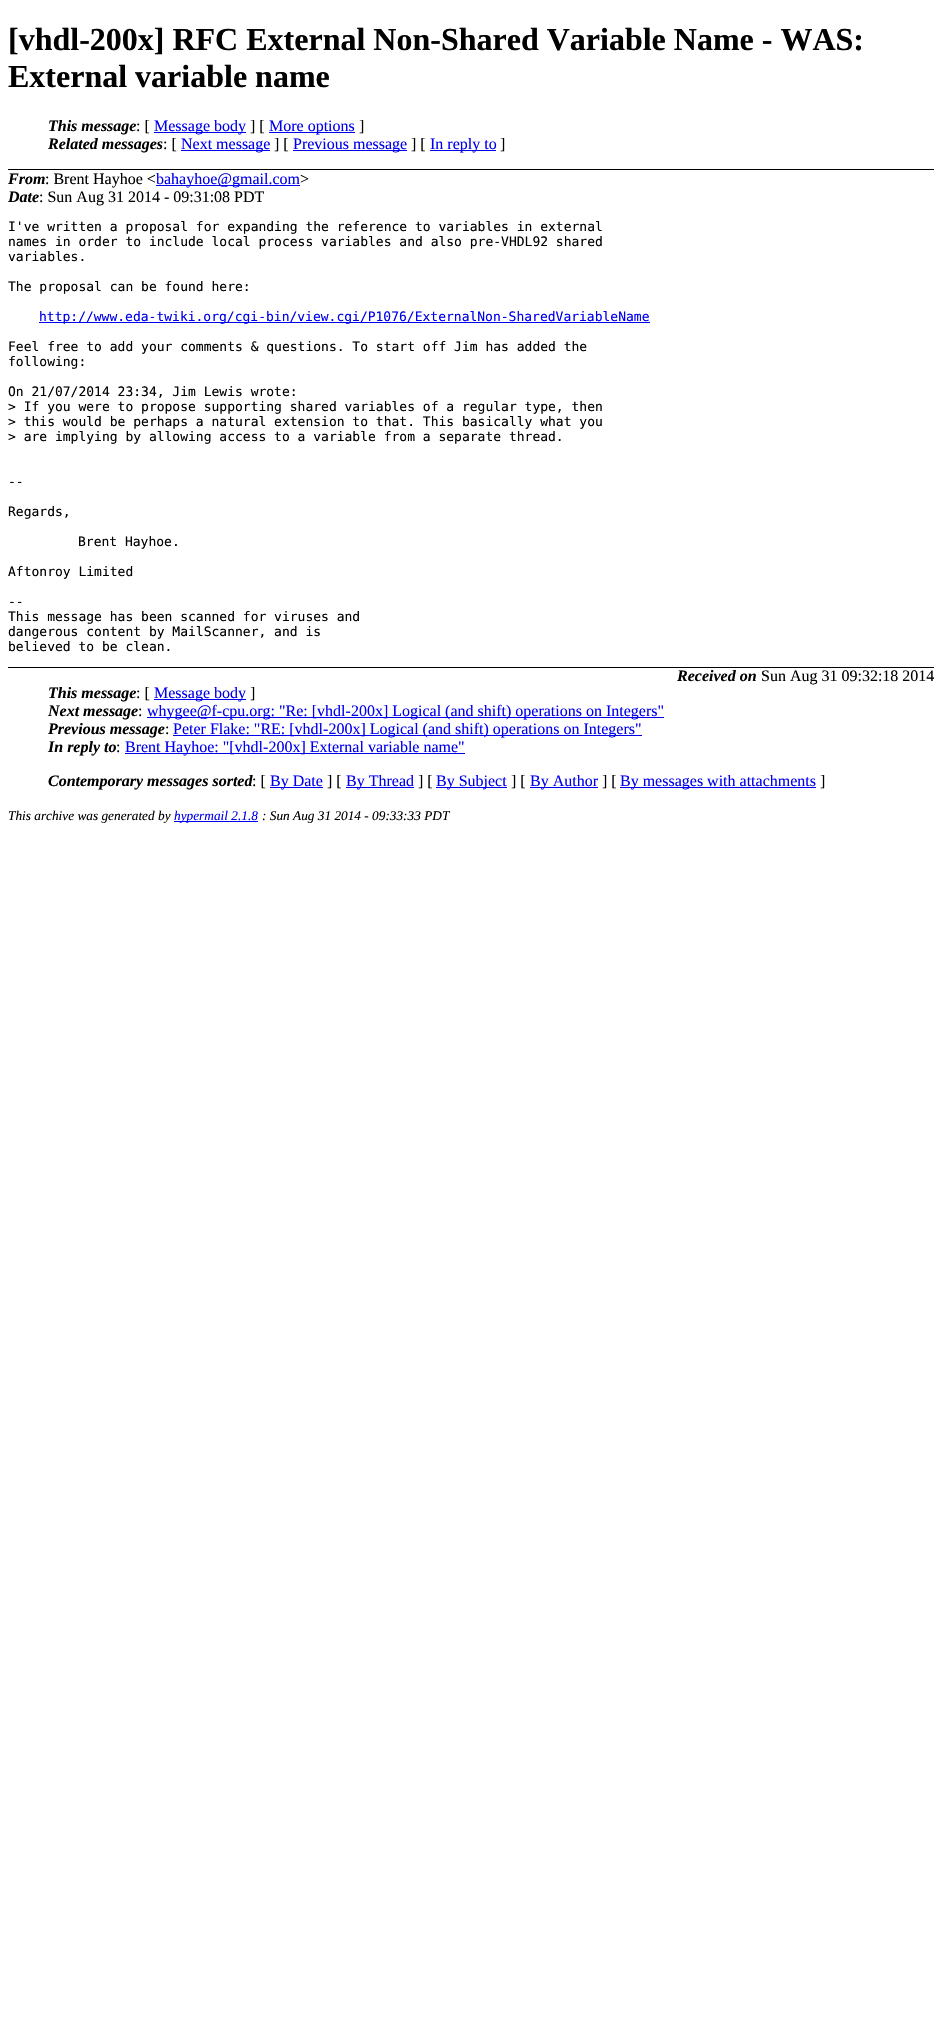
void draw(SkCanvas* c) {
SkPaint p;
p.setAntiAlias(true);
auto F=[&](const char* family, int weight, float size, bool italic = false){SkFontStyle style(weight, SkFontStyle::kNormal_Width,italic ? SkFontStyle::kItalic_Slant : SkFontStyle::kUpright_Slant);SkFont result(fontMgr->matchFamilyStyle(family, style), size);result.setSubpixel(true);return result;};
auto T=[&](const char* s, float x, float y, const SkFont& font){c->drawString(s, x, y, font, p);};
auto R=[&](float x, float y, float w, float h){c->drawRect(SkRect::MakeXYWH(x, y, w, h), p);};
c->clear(0xffffffff);
p.setColor(0xff000000);
R(8,169,926,1);
auto f1 = F("Liberation Serif",700,32);
T("[vhdl-200x] RFC External Non-Shared Variable Name - WAS:",8,50,f1);
T("External variable name",8,87,f1);
auto f2 = F("Liberation Serif",700,16,true);
T("This message",48,131,f2);
auto f3 = F("Liberation Serif",400,16);
T(": [",136,131,f3);
p.setColor(0xff0000ee);
R(154,132,92,1);
T("Message body",154,131,f3);
p.setColor(0xff000000);
T("] [",250,131,f3);
p.setColor(0xff0000ee);
R(269,132,86,1);
T("More options",269,131,f3);
p.setColor(0xff000000);
T("]",359,131,f3);
T("Related messages",48,149,f2);
T(": [",163,149,f3);
p.setColor(0xff0000ee);
R(181,150,89,1);
T("Next message",181,149,f3);
p.setColor(0xff000000);
T("] [",274,149,f3);
p.setColor(0xff0000ee);
R(293,150,114,1);
T("Previous message",293,149,f3);
p.setColor(0xff000000);
T("] [",411,149,f3);
p.setColor(0xff0000ee);
R(430,150,66,1);
T("In reply to",430,149,f3);
p.setColor(0xff000000);
T("]",500,149,f3);
T("From",8,184,f2);
T(": Brent Hayhoe <",45,184,f3);
p.setColor(0xff0000ee);
R(156,185,144,1);
T("bahayhoe@gmail.com",156,184,f3);
p.setColor(0xff000000);
T(">",300,184,f3);
T("Date",8,202,f2);
T(": Sun Aug 31 2014 - 09:31:08 PDT",39,202,f3);
auto f4 = F("DejaVu Sans Mono",400,13);
T("I've written a proposal for expanding the reference to variables in external",8,231,f4);
T("names in order to include local process variables and also pre-VHDL92 shared",8,246,f4);
T("variables.",8,261,f4);
T("The proposal can be found here:",8,291,f4);
p.setColor(0xff0000ee);
R(39,322,611,1);
T("http://www.eda-twiki.org/cgi-bin/view.cgi/P1076/ExternalNon-SharedVariableName",39,321,f4);
p.setColor(0xff000000);
T("Feel free to add your comments & questions. To start off Jim has added the",8,351,f4);
T("following:",8,366,f4);
T("On 21/07/2014 23:34, Jim Lewis wrote:",8,396,f4);
T("> If you were to propose supporting shared variables of a regular type, then",8,411,f4);
T("> this would be perhaps a natural extension to that. This basically what you",8,426,f4);
T("> are implying by allowing access to a variable from a separate thread.",8,441,f4);
T("--",8,486,f4);
T("Regards,",8,516,f4);
T("Brent Hayhoe.",78,546,f4);
T("Aftonroy Limited",8,576,f4);
T("--",8,606,f4);
T("This message has been scanned for viruses and",8,621,f4);
T("dangerous content by MailScanner, and is",8,636,f4);
T("believed to be clean.",8,651,f4);
T("Received on",677,681,f2);
T("Sun Aug 31 09:32:18 2014",761,681,f3);
R(8,667,926,1);
T("This message",48,698,f2);
T(": [",136,698,f3);
p.setColor(0xff0000ee);
R(154,699,92,1);
T("Message body",154,698,f3);
p.setColor(0xff000000);
T("]",250,698,f3);
T("Next message",48,716,f2);
T(":",138,716,f3);
p.setColor(0xff0000ee);
R(147,717,517,1);
T("whygee@f-cpu.org: \"Re: [vhdl-200x] Logical (and shift) operations on Integers\"",147,716,f3);
p.setColor(0xff000000);
T("Previous message",48,734,f2);
T(":",165,734,f3);
p.setColor(0xff0000ee);
R(173,735,469,1);
T("Peter Flake: \"RE: [vhdl-200x] Logical (and shift) operations on Integers\"",173,734,f3);
p.setColor(0xff000000);
T("In reply to",48,752,f2);
T(":",116,752,f3);
p.setColor(0xff0000ee);
R(125,753,340,1);
T("Brent Hayhoe: \"[vhdl-200x] External variable name\"",125,752,f3);
p.setColor(0xff000000);
T("Contemporary messages sorted",48,786,f2);
T(": [",252,786,f3);
p.setColor(0xff0000ee);
R(270,787,53,1);
T("By Date",270,786,f3);
p.setColor(0xff000000);
T("] [",327,786,f3);
p.setColor(0xff0000ee);
R(346,787,68,1);
T("By Thread",346,786,f3);
p.setColor(0xff000000);
T("] [",418,786,f3);
p.setColor(0xff0000ee);
R(436,787,71,1);
T("By Subject",436,786,f3);
p.setColor(0xff000000);
T("] [",511,786,f3);
p.setColor(0xff0000ee);
R(530,787,68,1);
T("By Author",530,786,f3);
p.setColor(0xff000000);
T("] [",602,786,f3);
p.setColor(0xff0000ee);
R(620,787,196,1);
T("By messages with attachments",620,786,f3);
p.setColor(0xff000000);
T("]",820,786,f3);
auto f5 = F("Liberation Serif",400,13.3,true);
T("This archive was generated by",8,820,f5);
p.setColor(0xff0000ee);
R(174,821,84,1);
T("hypermail 2.1.8",174,820,f5);
p.setColor(0xff000000);
T(": Sun Aug 31 2014 - 09:33:33 PDT",262,820,f5);
}
